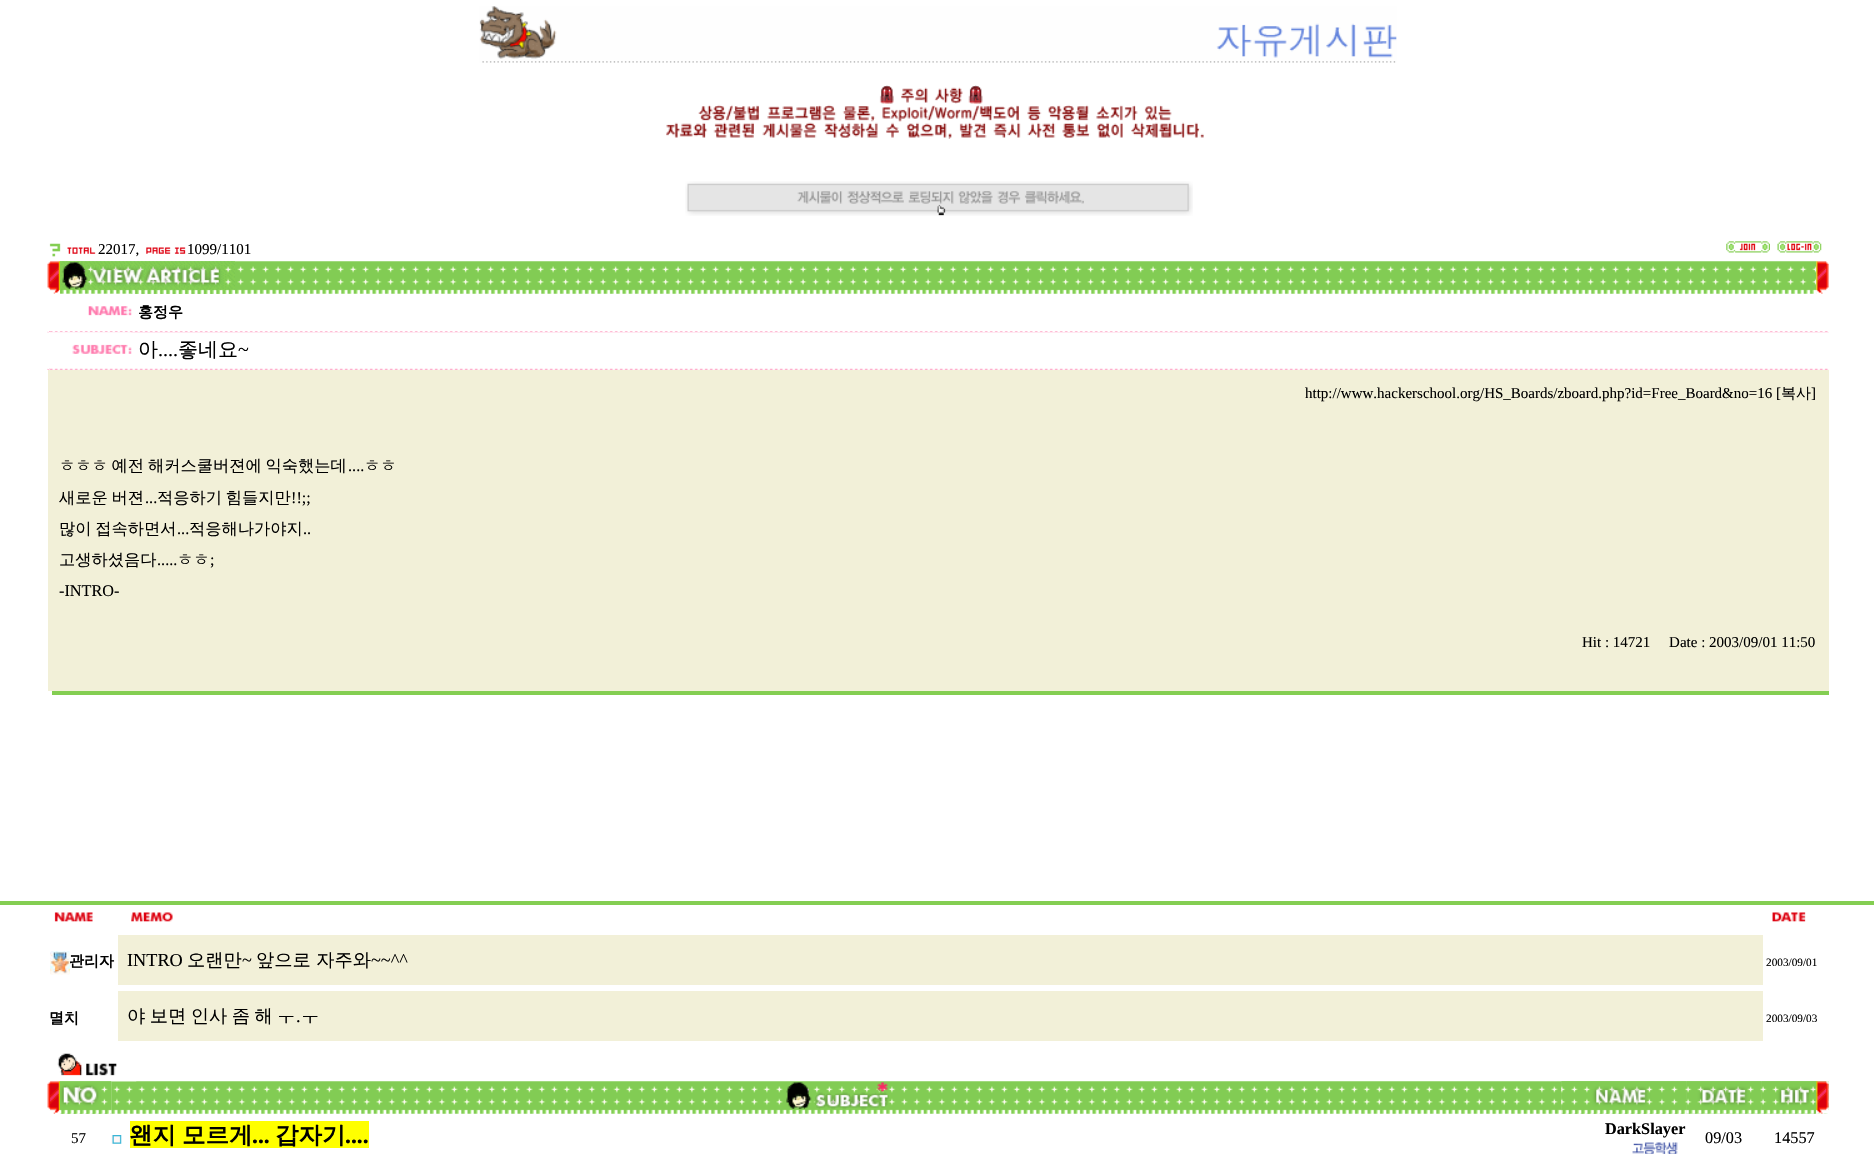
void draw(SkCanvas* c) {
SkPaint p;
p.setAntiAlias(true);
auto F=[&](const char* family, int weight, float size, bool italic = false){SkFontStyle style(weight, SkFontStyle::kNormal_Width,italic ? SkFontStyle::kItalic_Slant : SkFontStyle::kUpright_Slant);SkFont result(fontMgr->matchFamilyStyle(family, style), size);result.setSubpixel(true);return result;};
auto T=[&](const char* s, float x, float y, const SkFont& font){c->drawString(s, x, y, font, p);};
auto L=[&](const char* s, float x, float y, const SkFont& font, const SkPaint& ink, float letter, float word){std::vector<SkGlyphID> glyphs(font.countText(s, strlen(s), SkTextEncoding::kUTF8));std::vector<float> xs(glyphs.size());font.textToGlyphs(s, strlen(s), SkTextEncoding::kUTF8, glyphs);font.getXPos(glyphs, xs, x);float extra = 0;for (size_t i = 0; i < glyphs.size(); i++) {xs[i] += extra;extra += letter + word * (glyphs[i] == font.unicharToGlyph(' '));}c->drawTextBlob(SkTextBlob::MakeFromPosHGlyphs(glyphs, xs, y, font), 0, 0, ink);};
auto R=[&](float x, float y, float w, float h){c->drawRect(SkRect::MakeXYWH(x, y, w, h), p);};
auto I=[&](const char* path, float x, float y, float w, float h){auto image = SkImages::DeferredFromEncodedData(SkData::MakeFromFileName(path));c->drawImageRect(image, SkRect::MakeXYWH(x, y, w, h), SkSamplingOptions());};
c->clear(0xffffffff);
I("1.png",479,6,918,57);
I("2.png",666,85,538,54);
I("3.png",685,181,508,35);
I("4.png",49,243,12,14);
I("5.png",67,247,29,7);
auto f1 = F("Liberation Serif",400,15);
p.setColor(0xff000000);
T("22017,",98,254,f1);
I("6.png",146,247,40,7);
T("1099/1101",187,254,f1);
I("7.png",1726,241,44,12);
I("8.png",1777,241,45,12);
I("9.png",47,261,13,33);
I("10.png",60,261,1757,33);
I("11.png",60,261,175,33);
I("12.png",1816,261,13,33);
I("13.png",53,293,79,23);
auto f2 = F("WenQuanYi Zen Hei",700,15);
T("홍정우",138,317,f2);
I("14.png",47,331,1782,2);
I("15.png",47,331,3,2);
I("16.png",47,332,85,22);
auto f3 = F("WenQuanYi Zen Hei",500,20);
T("아",138,356,f3);
T("좋네요",178,356,f3);
auto f4 = F("Liberation Serif",400,20);
T("~",238,356,f4);
T("....",158,356,f4);
I("17.png",47,368,1782,2);
I("18.png",47,368,3,2);
p.setColor(0xfff2f0d8);
R(48,370,1781,321);
p.setColor(0xff000000);
T("http://www.hackerschool.org/HS_Boards/zboard.php?id=Free_Board&no=16 [",1305,398,f1);
auto f5 = F("WenQuanYi Zen Hei",500,15);
T("복사",1781,398,f5);
T("]",1811,398,f1);
auto f6 = F("WenQuanYi Zen Hei",500,16.25);
L("ㅎㅎㅎ 예전 해커스쿨버젼에 익숙했는데",59,471,f6,p,0,-1);
T("ㅎㅎ",364,471,f6);
auto f7 = F("Liberation Serif",400,16.25);
T("....",348,471,f7);
L("새로운 버젼",59,503,f6,p,0,-1);
T("...",145,503,f7);
L("적응하기 힘들지만",157,503,f6,p,0,-1);
T("!!;;",291,503,f7);
L("많이 접속하면서",59,534,f6,p,0,-1);
T("...",177,534,f7);
T("적응해나가야지",189,534,f6);
T("..",303,534,f7);
T("고생하셨음다",59,565,f6);
T(".....",157,565,f7);
T("ㅎㅎ",177,565,f6);
T(";",210,565,f7);
T("-INTRO-",59,596,f7);
T("Hit : 14721     Date : 2003/09/01 11:50",1582,647,f1);
p.setColor(0xff84ce52);
R(47,691,1782,4);
p.setColor(0xffffffff);
R(47,691,5,4);
p.setColor(0xff84ce52);
R(0,901,1874,4);
I("19.png",54,912,39,10);
I("20.png",131,912,42,10);
I("21.png",1772,912,34,10);
I("22.png",50,951,20,24);
p.setColor(0xff000000);
T("관리자",69,966,f2);
p.setColor(0xfff2f0d8);
R(118,935,1645,50);
auto f8 = F("Liberation Serif",400,18.25);
p.setColor(0xff000000);
T("INTRO",127,966,f8);
auto f9 = F("WenQuanYi Zen Hei",500,18.25);
T("오랜만",187,966,f9);
T("~",242,966,f8);
T("앞으로 자주와",256,966,f9);
T("~~^^",371,966,f8);
auto f10 = F("Liberation Serif",400,11.25);
T("2003/09/01",1766,966,f10);
T("멸치",49,1023,f2);
p.setColor(0xfff2f0d8);
R(118,991,1645,50);
p.setColor(0xff000000);
L("야 보면 인사 좀 해 ㅜ",127,1022,f9,p,0,-1);
T(".",296,1022,f8);
T("ㅜ",301,1022,f9);
T("2003/09/03",1766,1022,f10);
I("24.png",60,1081,52,33);
I("26.png",111,1081,1451,33);
I("23.png",57,1053,80,29);
I("9.png",47,1081,13,33);
I("25.png",60,1081,52,33);
I("27.png",786,1082,103,27);
I("28.png",1561,1081,126,33);
I("30.png",1686,1081,76,33);
I("29.png",1561,1081,126,33);
I("32.png",1761,1081,68,33);
I("31.png",1686,1081,76,33);
I("33.png",1761,1081,56,33);
I("34.png",1816,1081,13,33);
T("57",71,1143,f1);
I("35.png",111,1135,11,9);
p.setColor(0xffffff00);
R(130,1121,239,27);
auto f11 = F("WenQuanYi Zen Hei",700,23.5);
p.setColor(0xff000000);
L("왠지 모르게",129,1143,f11,p,0,-1);
auto f12 = F("Liberation Serif",700,23.5);
T("...",252,1143,f12);
T("갑자기",275,1143,f11);
T("....",345,1143,f12);
auto f13 = F("Liberation Serif",700,16.25);
T("DarkSlayer",1605,1134,f13);
I("36.png",1632,1142,46,12);
T("09/03",1705,1143,f7);
T("14557",1774,1143,f7);
}
